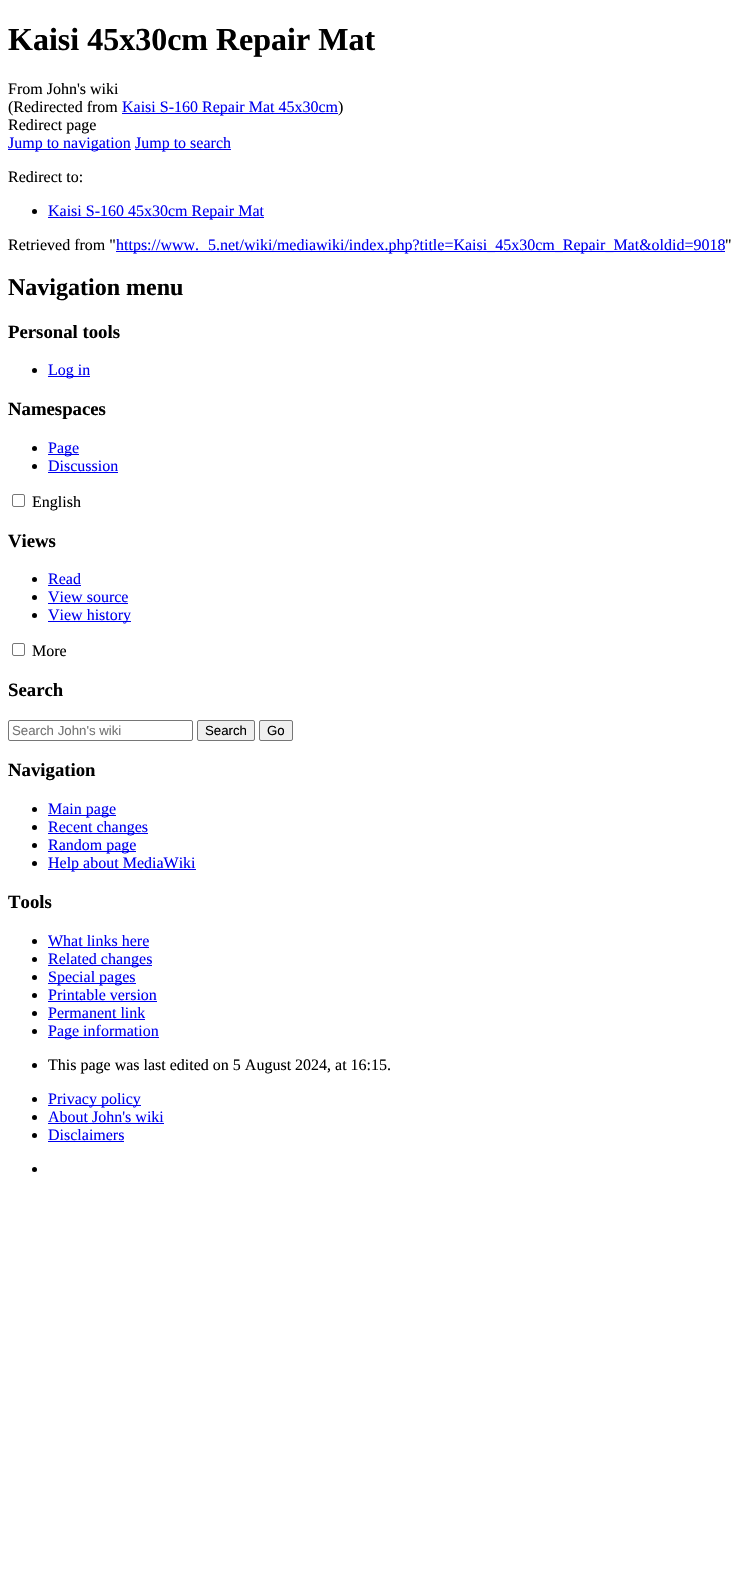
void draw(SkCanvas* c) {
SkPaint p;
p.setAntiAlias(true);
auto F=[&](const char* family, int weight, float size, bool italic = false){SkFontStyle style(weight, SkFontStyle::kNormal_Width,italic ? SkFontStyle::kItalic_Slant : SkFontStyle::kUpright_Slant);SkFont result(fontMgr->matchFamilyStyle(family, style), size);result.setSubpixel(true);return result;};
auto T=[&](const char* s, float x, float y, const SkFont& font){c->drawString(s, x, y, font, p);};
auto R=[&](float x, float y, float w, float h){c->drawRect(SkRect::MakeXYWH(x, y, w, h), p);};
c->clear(0xffffffff);
auto f1 = F("Liberation Serif",700,32);
p.setColor(0xff000000);
T("Kaisi 45x30cm Repair Mat",8,50,f1);
auto f2 = F("Liberation Serif",400,16);
T("From John's wiki",8,94,f2);
T("(Redirected from",8,112,f2);
p.setColor(0xff0000ee);
R(122,113,216,1);
T("Kaisi S-160 Repair Mat 45x30cm",122,112,f2);
p.setColor(0xff000000);
T(")",338,112,f2);
T("Redirect page",8,130,f2);
p.setColor(0xff0000ee);
R(8,149,123,1);
T("Jump to navigation",8,148,f2);
R(135,149,96,1);
T("Jump to search",135,148,f2);
p.setColor(0xff000000);
T("Redirect to:",8,182,f2);
c->drawCircle(34.5,211.5,2.5,p);
p.setColor(0xff0000ee);
R(48,217,216,1);
T("Kaisi S-160 45x30cm Repair Mat",48,216,f2);
p.setColor(0xff000000);
T("Retrieved from \"",8,250,f2);
p.setColor(0xff0000ee);
R(116,251,609,1);
T("https://www.",116,250,f2);
T("5.net/wiki/mediawiki/index.php?title=Kaisi_45x30cm_Repair_Mat&oldid=9018",208,250,f2);
p.setColor(0xff000000);
T("\"",725,250,f2);
auto f3 = F("Liberation Serif",700,24);
T("Navigation menu",8,295,f3);
auto f4 = F("Liberation Serif",700,18.75);
T("Personal tools",8,338,f4);
c->drawCircle(34.5,370.5,2.5,p);
p.setColor(0xff0000ee);
R(48,376,42,1);
T("Log in",48,375,f2);
p.setColor(0xff000000);
T("Namespaces",8,415,f4);
c->drawCircle(34.5,448.5,2.5,p);
p.setColor(0xff0000ee);
R(48,454,31,1);
T("Page",48,453,f2);
p.setColor(0xff000000);
c->drawCircle(34.5,466.5,2.5,p);
p.setColor(0xff0000ee);
T("Discussion",48,471,f2);
R(48,472,70,1);
p.setStroke(true);
p.setStrokeWidth(1);
p.setColor(0xff767676);
c->drawRoundRect(SkRect::MakeXYWH(12.5,494.5,12,12),1.5,1.5,p);
p.setStroke(false);
p.setColor(0xff000000);
T("English",32,507,f2);
T("Views",8,547,f4);
c->drawCircle(34.5,579.5,2.5,p);
p.setColor(0xff0000ee);
T("Read",48,584,f2);
R(48,585,33,1);
p.setColor(0xff000000);
c->drawCircle(34.5,597.5,2.5,p);
p.setColor(0xff0000ee);
T("View source",48,602,f2);
R(48,603,80,1);
p.setColor(0xff000000);
c->drawCircle(34.5,615.5,2.5,p);
p.setColor(0xff0000ee);
R(48,621,83,1);
T("View history",48,620,f2);
p.setStroke(true);
p.setColor(0xff767676);
c->drawRoundRect(SkRect::MakeXYWH(12.5,643.5,12,12),1.5,1.5,p);
p.setStroke(false);
p.setColor(0xff000000);
T("More",32,656,f2);
T("Search",8,696,f4);
p.setStroke(true);
p.setColor(0xff767676);
c->drawRoundRect(SkRect::MakeXYWH(8.5,720.5,184,20),1.5,1.5,p);
auto f5 = F("Liberation Sans",400,13.25);
p.setStroke(false);
p.setColor(0xff757575);
T("Search John's wiki",12,735,f5);
p.setColor(0xffefefef);
c->drawRoundRect(SkRect::MakeXYWH(197.5,720.5,57,20),1.5,1.5,p);
p.setStroke(true);
p.setColor(0xff767676);
c->drawRoundRect(SkRect::MakeXYWH(197.5,720.5,57,20),1.5,1.5,p);
p.setStroke(false);
p.setColor(0xff000000);
T("Search",205,735,f5);
p.setColor(0xffefefef);
c->drawRoundRect(SkRect::MakeXYWH(259.5,720.5,33,20),1.5,1.5,p);
p.setStroke(true);
p.setColor(0xff767676);
c->drawRoundRect(SkRect::MakeXYWH(259.5,720.5,33,20),1.5,1.5,p);
p.setStroke(false);
p.setColor(0xff000000);
T("Go",267,735,f5);
T("Navigation",8,776,f4);
c->drawCircle(34.5,809.5,2.5,p);
p.setColor(0xff0000ee);
R(48,815,68,1);
T("Main page",48,814,f2);
p.setColor(0xff000000);
c->drawCircle(34.5,827.5,2.5,p);
p.setColor(0xff0000ee);
R(48,833,100,1);
T("Recent changes",48,832,f2);
p.setColor(0xff000000);
c->drawCircle(34.5,845.5,2.5,p);
p.setColor(0xff0000ee);
R(48,851,88,1);
T("Random page",48,850,f2);
p.setColor(0xff000000);
c->drawCircle(34.5,863.5,2.5,p);
p.setColor(0xff0000ee);
R(48,869,148,1);
T("Help about MediaWiki",48,868,f2);
p.setColor(0xff000000);
T("Tools",8,908,f4);
c->drawCircle(34.5,941.5,2.5,p);
p.setColor(0xff0000ee);
T("What links here",48,946,f2);
R(48,947,101,1);
p.setColor(0xff000000);
c->drawCircle(34.5,959.5,2.5,p);
p.setColor(0xff0000ee);
R(48,965,104,1);
T("Related changes",48,964,f2);
p.setColor(0xff000000);
c->drawCircle(34.5,977.5,2.5,p);
p.setColor(0xff0000ee);
R(48,983,88,1);
T("Special pages",48,982,f2);
p.setColor(0xff000000);
c->drawCircle(34.5,995.5,2.5,p);
p.setColor(0xff0000ee);
T("Printable version",48,1000,f2);
R(48,1001,109,1);
p.setColor(0xff000000);
c->drawCircle(34.5,1013.5,2.5,p);
p.setColor(0xff0000ee);
T("Permanent link",48,1018,f2);
R(48,1019,97,1);
p.setColor(0xff000000);
c->drawCircle(34.5,1031.5,2.5,p);
p.setColor(0xff0000ee);
R(48,1037,111,1);
T("Page information",48,1036,f2);
p.setColor(0xff000000);
c->drawCircle(34.5,1065.5,2.5,p);
T("This page was last edited on 5 August 2024, at 16:15.",48,1070,f2);
c->drawCircle(34.5,1099.5,2.5,p);
p.setColor(0xff0000ee);
R(48,1105,93,1);
T("Privacy policy",48,1104,f2);
p.setColor(0xff000000);
c->drawCircle(34.5,1117.5,2.5,p);
p.setColor(0xff0000ee);
T("About John's wiki",48,1122,f2);
R(48,1123,116,1);
p.setColor(0xff000000);
c->drawCircle(34.5,1135.5,2.5,p);
p.setColor(0xff0000ee);
T("Disclaimers",48,1140,f2);
R(48,1141,76,1);
p.setColor(0xff000000);
c->drawCircle(34.5,1169.5,2.5,p);
}
